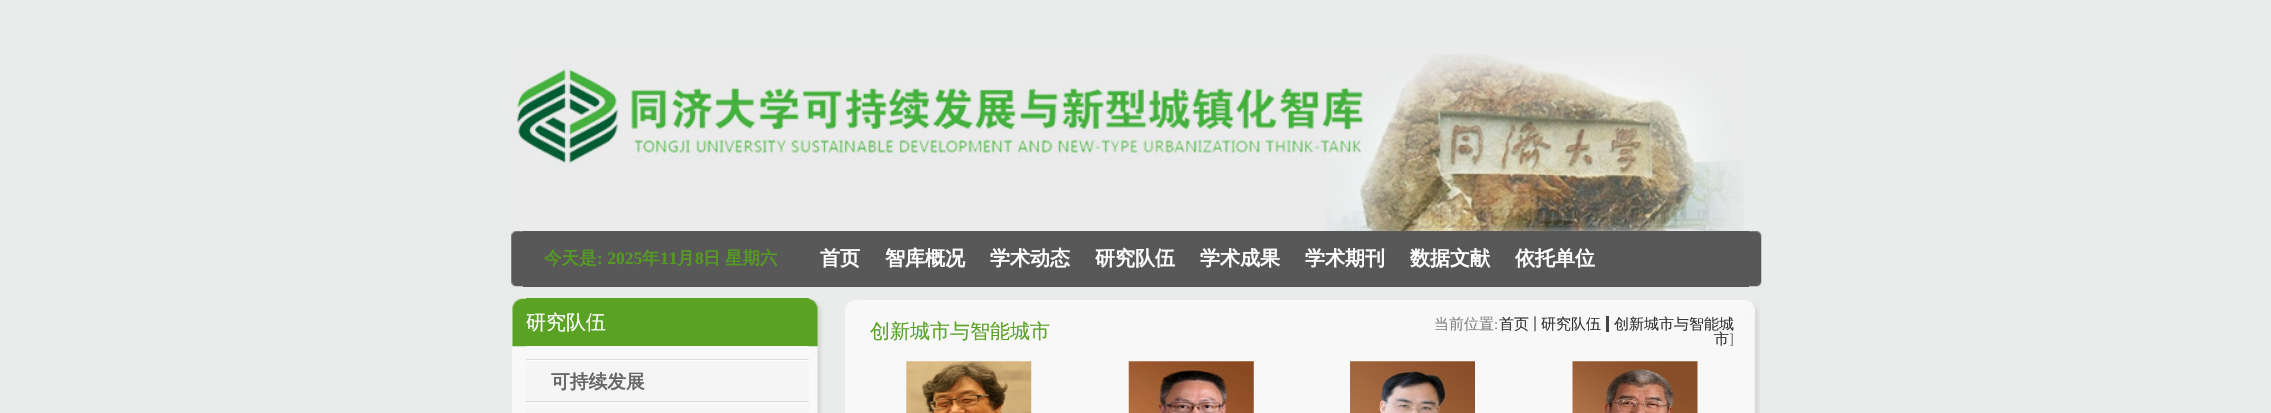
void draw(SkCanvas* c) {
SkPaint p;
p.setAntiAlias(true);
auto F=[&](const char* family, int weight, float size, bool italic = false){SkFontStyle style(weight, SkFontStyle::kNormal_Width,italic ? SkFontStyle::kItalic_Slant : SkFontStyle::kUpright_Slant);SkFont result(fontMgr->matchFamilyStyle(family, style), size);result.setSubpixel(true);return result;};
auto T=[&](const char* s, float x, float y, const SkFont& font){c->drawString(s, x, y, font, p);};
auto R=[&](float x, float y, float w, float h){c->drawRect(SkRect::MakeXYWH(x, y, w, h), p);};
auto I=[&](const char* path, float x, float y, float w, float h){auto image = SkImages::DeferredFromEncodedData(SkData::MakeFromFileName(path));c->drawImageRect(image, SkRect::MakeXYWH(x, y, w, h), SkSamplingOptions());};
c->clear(0xffeaebeb);
I("1.png",511,54,1233,178);
I("2.png",511,231,12,56);
p.setColor(0xff585858);
R(523,231,1226,56);
auto f1 = F("WenQuanYi Zen Hei",700,17.5);
p.setColor(0xff559b22);
T("今天是",544,264,f1);
auto f2 = F("Liberation Serif",700,17.5);
T(": 2025",597,264,f2);
T("年",642,264,f1);
T("11",660,264,f2);
T("月",677,264,f1);
T("8",695,264,f2);
T("日",703,264,f1);
T("星期六",725,264,f1);
auto f3 = F("WenQuanYi Zen Hei",700,20);
p.setColor(0xffffffff);
T("首页",820,265,f3);
T("智库概况",885,265,f3);
T("学术动态",990,265,f3);
T("研究队伍",1095,265,f3);
T("学术成果",1200,265,f3);
T("学术期刊",1305,265,f3);
T("数据文献",1410,265,f3);
T("依托单位",1515,265,f3);
I("3.png",1749,231,13,56);
p.setColor(0xff5aa224);
R(526,298,283,48);
p.setColor(0xfff8f8f8);
R(512,346,14,67);
R(526,346,283,13);
I("4.png",512,298,15,49);
auto f4 = F("WenQuanYi Zen Hei",500,20);
p.setColor(0xffffffff);
T("研究队伍",526,329,f4);
p.setColor(0xffdddddd);
R(526,359,283,1);
p.setColor(0xfff5f5f5);
R(526,361,283,42);
p.setColor(0xffffffff);
R(526,360,283,1);
p.setColor(0xffdddddd);
R(526,401,283,1);
p.setColor(0xfff5f5f5);
R(526,404,283,9);
p.setColor(0xffffffff);
R(526,403,283,1);
I("6.png",808,346,15,67);
I("5.png",808,298,15,49);
auto f5 = F("WenQuanYi Zen Hei",700,18.75);
p.setColor(0xff666666);
T("可持续发展",551,388,f5);
I("7.png",845,300,14,14);
p.setColor(0xfff8f8f8);
R(859,300,887,14);
I("9.png",1746,313,14,100);
I("8.png",1746,300,14,14);
R(845,314,901,99);
p.setColor(0xff5aa224);
T("创新城市与智能城市",870,338,f4);
auto f6 = F("WenQuanYi Zen Hei",500,15);
p.setColor(0xff858383);
T("当前位置",1434,329,f6);
auto f7 = F("Liberation Serif",400,15);
T(":",1494,329,f7);
p.setColor(0xff333333);
T("首页",1499,329,f6);
I("10.png",1534,316,2,16);
T("研究队伍",1541,329,f6);
p.setColor(0xff444444);
R(1606,316,3,16);
p.setColor(0xff333333);
T("创新城市与智能城",1614,329,f6);
T("市",1714,344,f6);
p.setColor(0xff858383);
T("]",1729,344,f7);
I("11.png",906,361,126,52);
I("12.png",1128,361,126,52);
I("13.png",1350,361,125,52);
I("14.png",1572,361,126,52);
}
